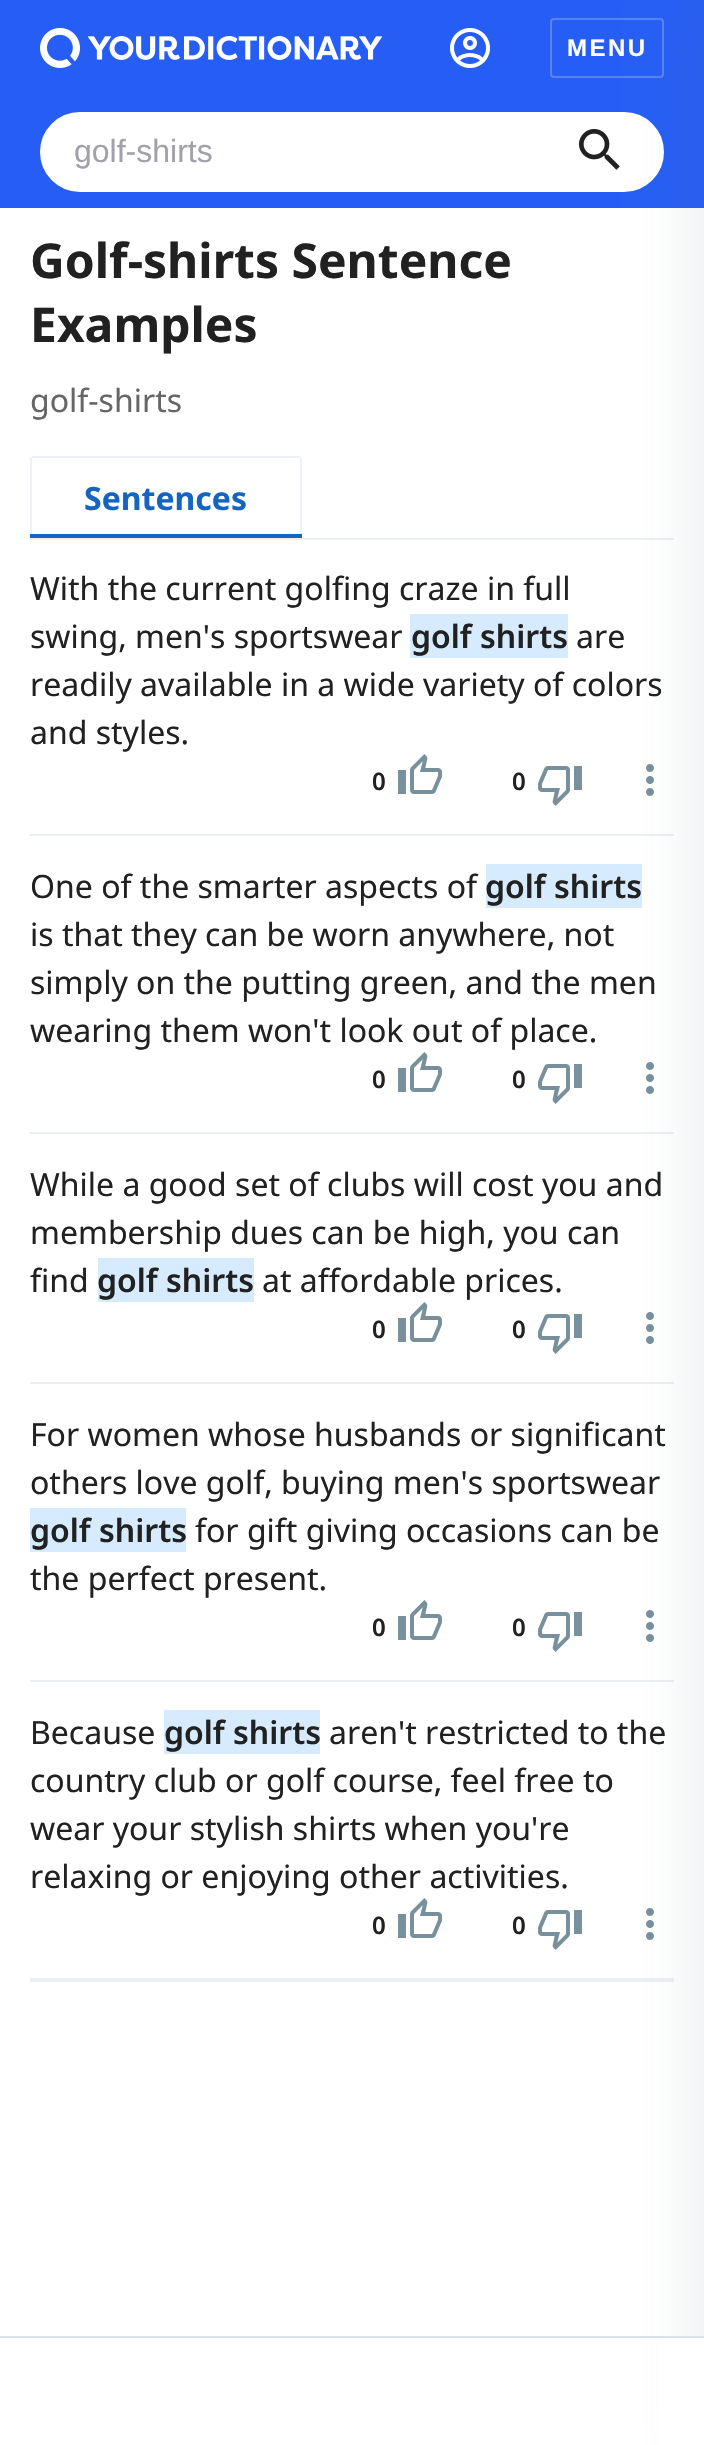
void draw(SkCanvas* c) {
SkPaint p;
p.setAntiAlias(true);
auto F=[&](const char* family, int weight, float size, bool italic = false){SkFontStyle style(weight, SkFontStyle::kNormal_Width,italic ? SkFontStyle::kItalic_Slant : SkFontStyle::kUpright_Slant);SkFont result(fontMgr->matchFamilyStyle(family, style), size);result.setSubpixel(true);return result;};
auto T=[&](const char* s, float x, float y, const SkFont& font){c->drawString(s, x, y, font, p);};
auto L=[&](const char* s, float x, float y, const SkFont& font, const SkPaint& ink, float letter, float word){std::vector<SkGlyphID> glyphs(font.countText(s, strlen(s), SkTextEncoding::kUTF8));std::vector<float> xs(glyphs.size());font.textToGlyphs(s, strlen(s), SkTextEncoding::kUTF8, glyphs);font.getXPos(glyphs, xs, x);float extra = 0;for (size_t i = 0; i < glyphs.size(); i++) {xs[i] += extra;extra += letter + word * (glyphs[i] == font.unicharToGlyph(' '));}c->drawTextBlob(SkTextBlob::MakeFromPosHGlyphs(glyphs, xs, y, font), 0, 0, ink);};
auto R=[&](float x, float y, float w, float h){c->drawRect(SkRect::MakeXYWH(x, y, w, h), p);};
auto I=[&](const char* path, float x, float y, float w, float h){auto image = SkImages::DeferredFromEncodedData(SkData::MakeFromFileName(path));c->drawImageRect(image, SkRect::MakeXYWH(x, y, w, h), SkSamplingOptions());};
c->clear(0xffffffff);
p.setColor(0xff265ef5);
R(0,0,704,208);
I("1.png",40,28,342,40);
I("2.png",450,28,40,40);
p.setStroke(true);
p.setStrokeWidth(2);
p.setColor(0xff5983ee);
c->drawRoundRect(SkRect::MakeXYWH(551,19,112,58),3,3,p);
p.setStroke(false);
p.setColor(0xffffffff);
c->drawRoundRect(SkRect::MakeXYWH(42,114,620,76),38,38,p);
p.setStroke(true);
p.setStrokeWidth(4);
c->drawRoundRect(SkRect::MakeXYWH(42,114,620,76),38,38,p);
I("3.png",579,129,41,41);
p.setStroke(false);
p.setColor(0xffeceff1);
R(30,538,644,2);
R(30,834,644,2);
I("6.png",646,764,8,32);
R(30,1132,644,2);
p.setColor(0xffd6ebfd);
R(486,864,156,44);
I("6.png",646,1062,8,32);
p.setColor(0xffeceff1);
R(30,1382,644,2);
I("6.png",646,1312,8,32);
R(30,1680,644,2);
I("6.png",646,1610,8,32);
I("6.png",646,1908,8,32);
R(30,1978,644,4);
p.setColor(0x1f546e7a);
p.setMaskFilter(SkMaskFilter::MakeBlur(kNormal_SkBlurStyle, 30));
c->drawRect(SkRect::MakeXYWH(694,2,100,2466),p);
p.setMaskFilter(nullptr);
auto f1 = F("Liberation Sans",700,24);
p.setColor(0xffffffff);
L("MENU",567,56,f1,p,2.5,0);
auto f2 = F("Liberation Sans",400,32);
p.setColor(0xffa1a1aa);
T("golf-shirts",74,162,f2);
auto f3 = F("Noto Sans",700,48);
p.setColor(0xff212121);
T("Golf-shirts Sentence",30,278,f3);
T("Examples",30,342,f3);
auto f4 = F("Noto Sans",400,32);
p.setColor(0xff666666);
T("golf-shirts",30,412,f4);
p.setColor(0xffedf1f6);
R(32,456,268,2);
R(300,458,2,80);
R(30,458,2,80);
auto f5 = F("Noto Sans",700,32);
p.setColor(0xff1565c0);
T("Sentences",84,510,f5);
R(30,534,272,4);
p.setColor(0xff212121);
T("With the current golfing craze in full",30,600,f4);
T("swing, men's sportswear",30,648,f4);
p.setColor(0xffd6ebfd);
R(410,614,158,44);
auto f6 = F("Noto Sans",600,32);
p.setColor(0xff212121);
T("golf shirts",411,648,f6);
T("are",576,648,f4);
T("readily available in a wide variety of colors",30,696,f4);
T("and styles.",30,744,f4);
auto f7 = F("Noto Sans",600,24);
T("0",372,790,f7);
I("4.png",398,754,44,40);
T("0",512,790,f7);
I("5.png",538,766,44,40);
T("One of the smarter aspects of",30,898,f4);
T("golf shirts",485,898,f6);
T("is that they can be worn anywhere, not",30,946,f4);
T("simply on the putting green, and the men",30,994,f4);
T("wearing them won't look out of place.",30,1042,f4);
T("0",372,1088,f7);
I("4.png",398,1052,44,40);
T("0",512,1088,f7);
I("5.png",538,1064,44,40);
T("While a good set of clubs will cost you and",30,1196,f4);
T("membership dues can be high, you can",30,1244,f4);
T("find",30,1292,f4);
p.setColor(0xffd6ebfd);
R(98,1258,156,44);
p.setColor(0xff212121);
T("golf shirts",97,1292,f6);
T("at affordable prices.",262,1292,f4);
T("0",372,1338,f7);
I("4.png",398,1302,44,40);
T("0",512,1338,f7);
I("5.png",538,1314,44,40);
T("For women whose husbands or significant",30,1446,f4);
T("others love golf, buying men's sportswear",30,1494,f4);
p.setColor(0xffd6ebfd);
R(30,1508,156,44);
p.setColor(0xff212121);
T("golf shirts",30,1542,f6);
T("for gift giving occasions can be",195,1542,f4);
T("the perfect present.",30,1590,f4);
T("0",372,1636,f7);
I("4.png",398,1600,44,40);
T("0",512,1636,f7);
I("5.png",538,1612,44,40);
T("Because",30,1744,f4);
p.setColor(0xffd6ebfd);
R(164,1710,156,44);
p.setColor(0xff212121);
T("golf shirts",164,1744,f6);
T("aren't restricted to the",329,1744,f4);
T("country club or golf course, feel free to",30,1792,f4);
T("wear your stylish shirts when you're",30,1840,f4);
T("relaxing or enjoying other activities.",30,1888,f4);
T("0",372,1934,f7);
I("4.png",398,1898,44,40);
T("0",512,1934,f7);
I("5.png",538,1910,44,40);
p.setColor(0xffffffff);
R(659,2338,45,107);
p.setColor(0xffdae0e3);
R(0,2336,704,2);
}
